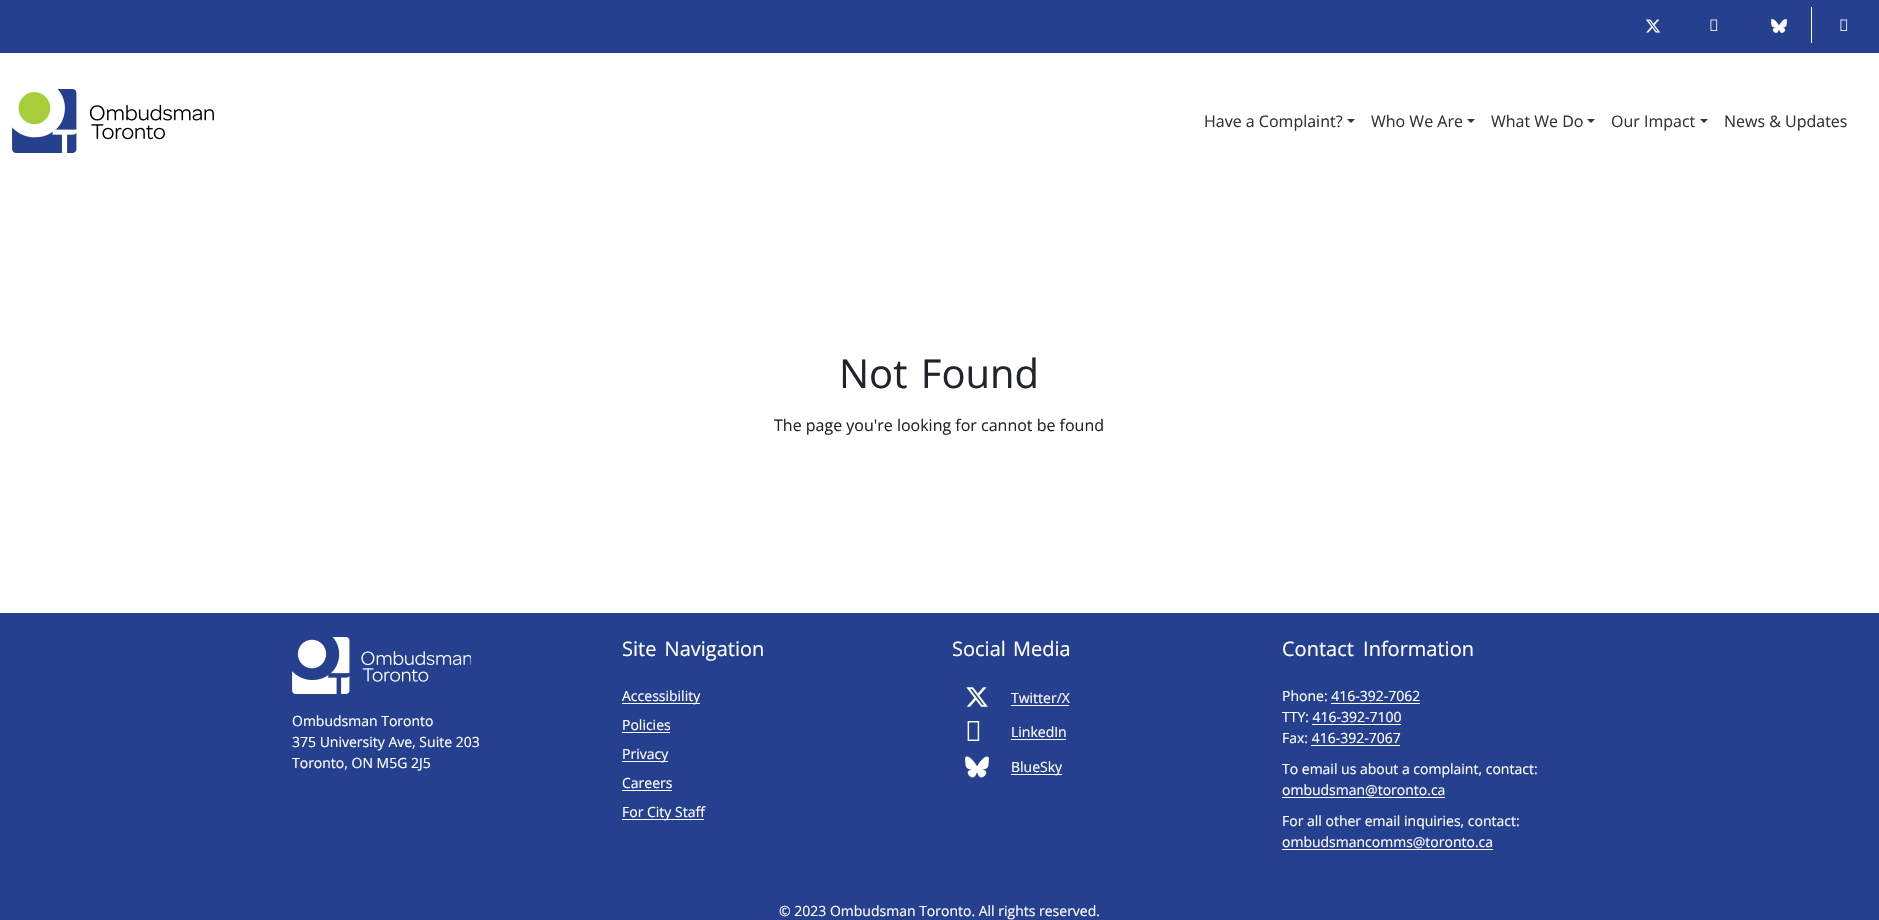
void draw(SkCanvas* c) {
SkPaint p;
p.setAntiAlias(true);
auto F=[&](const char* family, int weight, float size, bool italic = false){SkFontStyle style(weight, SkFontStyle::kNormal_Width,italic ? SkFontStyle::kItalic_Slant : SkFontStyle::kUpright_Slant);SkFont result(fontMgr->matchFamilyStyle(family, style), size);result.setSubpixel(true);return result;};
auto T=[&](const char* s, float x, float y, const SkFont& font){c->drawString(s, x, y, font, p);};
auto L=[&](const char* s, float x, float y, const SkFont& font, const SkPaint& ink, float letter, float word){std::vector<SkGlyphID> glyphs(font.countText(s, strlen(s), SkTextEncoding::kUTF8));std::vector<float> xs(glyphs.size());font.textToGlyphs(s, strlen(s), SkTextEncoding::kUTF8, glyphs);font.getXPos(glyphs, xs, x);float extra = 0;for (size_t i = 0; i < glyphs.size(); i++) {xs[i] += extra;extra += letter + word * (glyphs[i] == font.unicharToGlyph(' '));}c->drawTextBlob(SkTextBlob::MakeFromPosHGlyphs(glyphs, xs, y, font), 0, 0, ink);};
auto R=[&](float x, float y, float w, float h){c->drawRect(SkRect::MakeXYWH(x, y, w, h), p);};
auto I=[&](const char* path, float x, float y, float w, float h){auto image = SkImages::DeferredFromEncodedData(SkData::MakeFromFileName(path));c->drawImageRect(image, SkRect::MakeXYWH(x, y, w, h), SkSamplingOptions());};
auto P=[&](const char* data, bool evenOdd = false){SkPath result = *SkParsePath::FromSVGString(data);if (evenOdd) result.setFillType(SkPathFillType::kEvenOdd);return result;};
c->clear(0xffffffff);
p.setColor(0xff25408f);
R(0,0,1879,53);
I("1.png",1646,19,15,14);
I("2.png",1710,19,8,12);
I("3.png",1771,19,16,14);
p.setColor(0xffffffff);
R(1811,7,1,36);
I("2.png",1840,19,8,12);
I("4.png",12,89,202,64);
auto f1 = F("Open Sans",400,16);
p.setColor(0xff333333);
T("Have a Complaint?",1204,127,f1);
c->drawPath(P("M1347 119h8l-4 4z"),p);
T("Who We Are",1371,127,f1);
c->drawPath(P("M1467 119h8l-4 4z"),p);
T("What We Do",1491,127,f1);
c->drawPath(P("M1587 119h8l-4 4z"),p);
T("Our Impact",1611,127,f1);
c->drawPath(P("M1700 119h8l-4 4z"),p);
T("News & Updates",1724,127,f1);
auto f2 = F("Open Sans",400,40);
p.setColor(0xff212529);
L("Not Found",839,388,f2,p,0,3);
T("The page you're looking for cannot be found",774,431,f1);
p.setColor(0xff25408f);
R(0,613,1879,307);
I("5.png",292,637,179,57);
auto f3 = F("Open Sans",400,14);
p.setColor(0xffffffff);
T("Ombudsman Toronto",292,726,f3);
T("375 University Ave, Suite 203",292,747,f3);
T("Toronto, ON M5G 2J5",292,768,f3);
auto f4 = F("Open Sans",400,20);
L("Site Navigation",622,656,f4,p,0,3);
R(622,703,78,1);
T("Accessibility",622,701,f3);
T("Policies",622,730,f3);
R(622,732,48,1);
R(622,761,46,1);
T("Privacy",622,759,f3);
T("Careers",622,788,f3);
R(622,790,50,1);
R(622,819,82,1);
T("For City Staff",622,817,f3);
L("Social Media",952,656,f4,p,0,2);
I("6.png",966,687,22,20);
T("Twitter/X",1011,703,f3);
R(1011,705,58,1);
I("7.png",967,721,13,20);
T("LinkedIn",1011,737,f3);
R(1011,739,55,1);
I("8.png",965,756,24,22);
R(1011,774,51,1);
T("BlueSky",1011,772,f3);
L("Contact Information",1282,656,f4,p,0,4);
T("Phone: 416-392-7062",1282,701,f3);
R(1331,703,89,1);
T("TTY: 416-392-7100",1282,722,f3);
R(1312,724,89,1);
T("Fax: 416-392-7067",1282,743,f3);
R(1311,745,89,1);
T("To email us about a complaint, contact:",1282,774,f3);
T("ombudsman@toronto.ca",1282,795,f3);
R(1282,797,163,1);
T("For all other email inquiries, contact:",1282,826,f3);
T("ombudsmancomms@toronto.ca",1282,847,f3);
R(1282,849,211,1);
T("© 2023 Ombudsman Toronto. All rights reserved.",779,916,f3);
}
